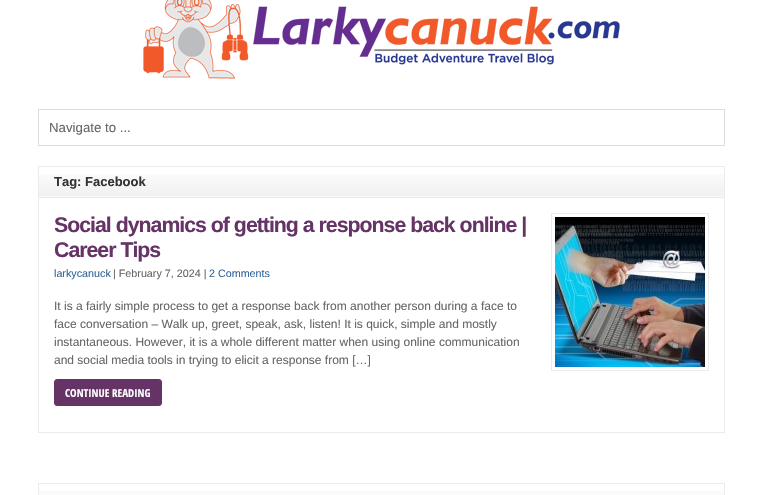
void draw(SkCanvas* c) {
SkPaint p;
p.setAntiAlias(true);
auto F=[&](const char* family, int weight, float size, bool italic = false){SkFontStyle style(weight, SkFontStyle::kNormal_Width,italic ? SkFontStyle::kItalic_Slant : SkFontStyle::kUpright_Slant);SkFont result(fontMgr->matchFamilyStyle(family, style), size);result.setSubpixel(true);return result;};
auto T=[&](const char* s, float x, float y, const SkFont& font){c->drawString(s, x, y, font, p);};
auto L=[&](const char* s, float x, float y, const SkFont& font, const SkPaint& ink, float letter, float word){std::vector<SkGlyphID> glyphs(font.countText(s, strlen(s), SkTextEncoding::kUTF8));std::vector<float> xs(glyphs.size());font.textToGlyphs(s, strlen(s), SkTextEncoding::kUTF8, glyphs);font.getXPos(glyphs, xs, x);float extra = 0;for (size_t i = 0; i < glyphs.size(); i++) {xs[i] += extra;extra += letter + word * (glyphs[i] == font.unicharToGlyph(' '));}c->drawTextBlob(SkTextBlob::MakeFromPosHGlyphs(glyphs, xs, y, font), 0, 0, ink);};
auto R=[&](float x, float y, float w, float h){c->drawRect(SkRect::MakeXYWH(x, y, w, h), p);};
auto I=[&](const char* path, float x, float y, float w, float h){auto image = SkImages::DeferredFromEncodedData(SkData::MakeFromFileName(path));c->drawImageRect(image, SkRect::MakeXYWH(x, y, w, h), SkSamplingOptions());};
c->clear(0xffffffff);
I("1.png",143,0,477,79);
p.setStroke(true);
p.setStrokeWidth(1);
p.setColor(0xffdddddd);
c->drawRect(SkRect::MakeXYWH(38.5,109.5,686,36),p);
auto f1 = F("Liberation Sans",400,13.25);
p.setStroke(false);
p.setColor(0xff666666);
T("Navigate to ...",49,132,f1);
I("2.png",39,174,685,23);
p.setColor(0xffebebeb);
R(38,166,687,1);
R(724,166,1,31);
R(38,166,1,31);
auto f2 = F("Liberation Sans",700,13);
p.setColor(0xff333333);
T("Tag: Facebook",54,186,f2);
p.setStroke(true);
p.setColor(0xffebebeb);
c->drawRect(SkRect::MakeXYWH(38.5,197.5,686,235),p);
auto f3 = F("Liberation Sans",700,21.3);
p.setStroke(false);
p.setColor(0xff663366);
L("Social dynamics of getting a response back online |",54,232,f3,p,-1,0);
L("Career Tips",54,257,f3,p,-1,0);
p.setStroke(true);
p.setColor(0xffebebeb);
c->drawRect(SkRect::MakeXYWH(551.5,213.5,157,157),p);
I("3.png",555,217,150,150);
auto f4 = F("Liberation Sans",400,10.75);
p.setStroke(false);
p.setColor(0xff336699);
T("larkycanuck",54,277,f4);
p.setColor(0xff666666);
T("| February 7, 2024 |",113,277,f4);
p.setColor(0xff336699);
T("2 Comments",209,277,f4);
auto f5 = F("Liberation Sans",400,12);
p.setColor(0xff666666);
T("It is a fairly simple process to get a response back from another person during a face to",54,310,f5);
T("face conversation – Walk up, greet, speak, ask, listen! It is quick, simple and mostly",54,328,f5);
T("instantaneous. However, it is a whole different matter when using online communication",54,346,f5);
T("and social media tools in trying to elicit a response from […]",54,364,f5);
p.setColor(0xff663366);
c->drawRoundRect(SkRect::MakeXYWH(54.5,379.5,107,26),2.5,2.5,p);
p.setStroke(true);
c->drawRoundRect(SkRect::MakeXYWH(54.5,379.5,107,26),2.5,2.5,p);
auto f6 = F("Open Sans Condensed",700,11);
p.setStroke(false);
p.setColor(0xffffffff);
T("CONTINUE READING",65,397,f6);
p.setStroke(true);
p.setColor(0xffebebeb);
c->drawRect(SkRect::MakeXYWH(38.5,483.5,686,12),p);
p.setStroke(false);
p.setColor(0xfffafafa);
R(39,491,685,4);
}
